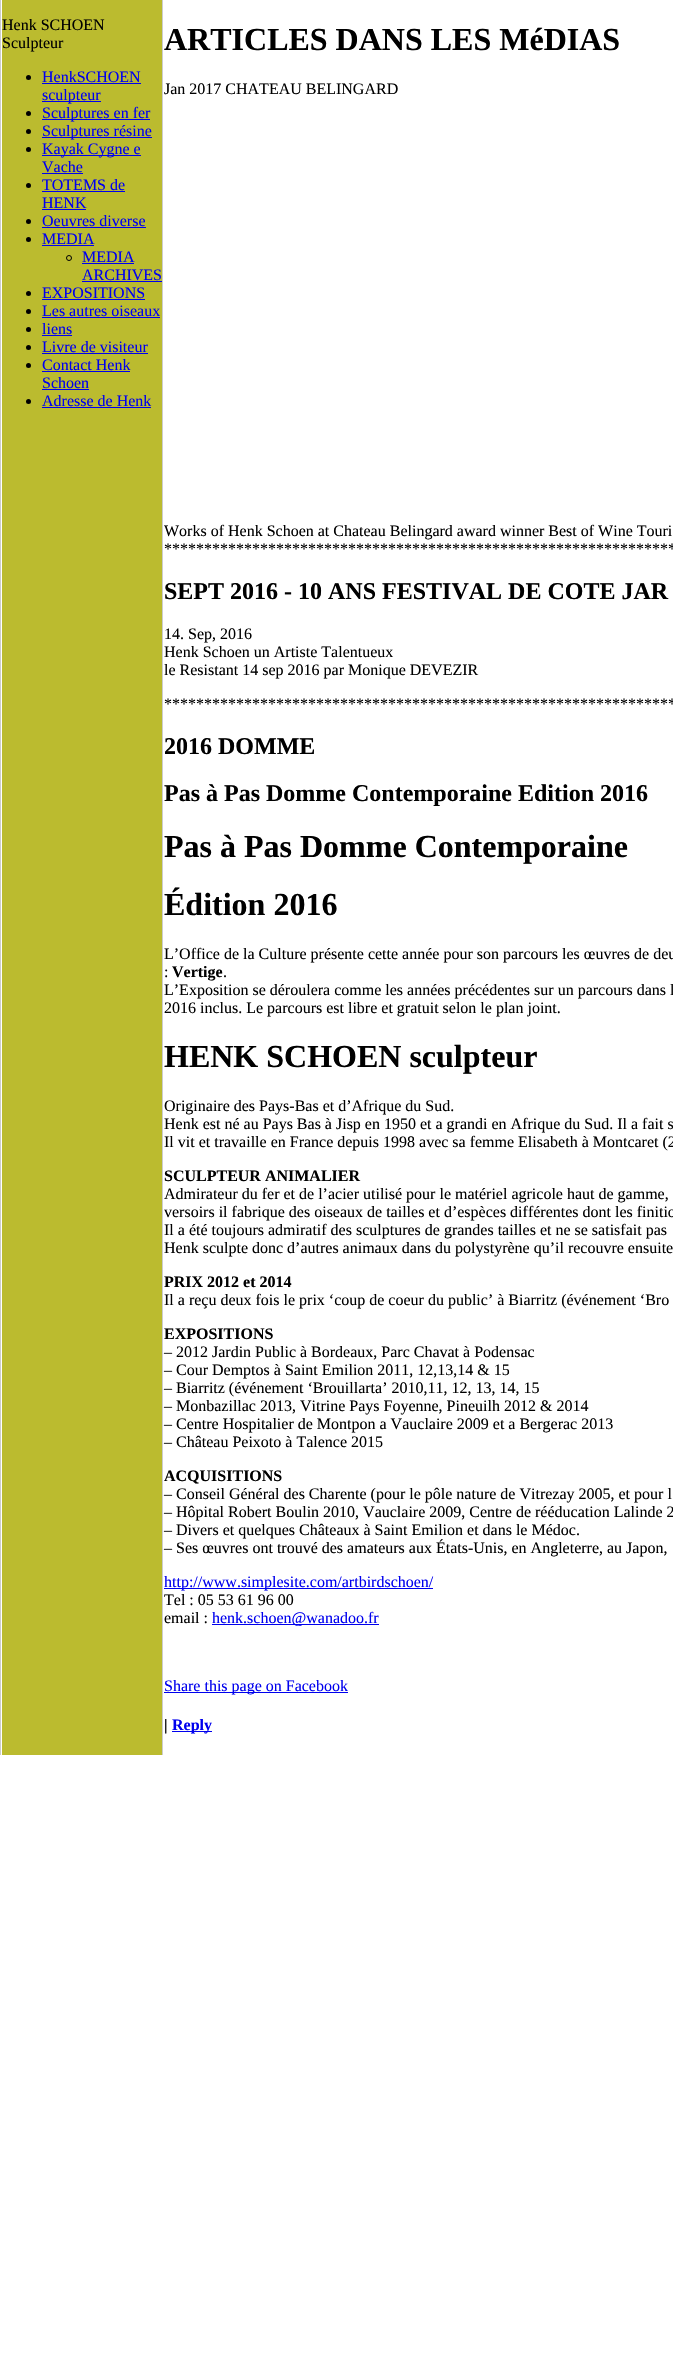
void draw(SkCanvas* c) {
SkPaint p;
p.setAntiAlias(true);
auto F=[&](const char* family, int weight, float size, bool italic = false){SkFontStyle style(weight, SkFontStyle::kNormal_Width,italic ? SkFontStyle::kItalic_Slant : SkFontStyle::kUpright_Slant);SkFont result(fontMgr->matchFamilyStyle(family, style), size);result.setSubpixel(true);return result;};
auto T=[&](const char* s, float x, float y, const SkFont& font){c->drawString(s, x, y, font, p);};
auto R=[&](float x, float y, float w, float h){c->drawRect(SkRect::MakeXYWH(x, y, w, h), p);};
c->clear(0xffffffff);
p.setColor(0xffcccccc);
R(0,0,1,1755);
p.setColor(0xffbbbb2f);
R(2,0,160,1755);
auto f1 = F("Liberation Serif",400,16);
p.setColor(0xff000000);
T("Henk SCHOEN",2,30,f1);
T("Sculpteur",2,48,f1);
c->drawCircle(28.5,77.5,2.5,p);
p.setColor(0xff0000ee);
T("HenkSCHOEN",42,82,f1);
R(42,83,99,1);
R(42,101,59,1);
T("sculpteur",42,100,f1);
p.setColor(0xff000000);
c->drawCircle(28.5,113.5,2.5,p);
p.setColor(0xff0000ee);
R(42,119,108,1);
T("Sculptures en fer",42,118,f1);
p.setColor(0xff000000);
c->drawCircle(28.5,131.5,2.5,p);
p.setColor(0xff0000ee);
R(42,137,110,1);
T("Sculptures résine",42,136,f1);
p.setColor(0xff000000);
c->drawCircle(28.5,149.5,2.5,p);
p.setColor(0xff0000ee);
R(42,155,99,1);
T("Kayak Cygne e",42,154,f1);
T("Vache",42,172,f1);
R(42,173,41,1);
p.setColor(0xff000000);
c->drawCircle(28.5,185.5,2.5,p);
p.setColor(0xff0000ee);
T("TOTEMS de",42,190,f1);
R(42,191,83,1);
T("HENK",42,208,f1);
R(42,209,44,1);
p.setColor(0xff000000);
c->drawCircle(28.5,221.5,2.5,p);
p.setColor(0xff0000ee);
T("Oeuvres diverse",42,226,f1);
R(42,227,104,1);
p.setColor(0xff000000);
c->drawCircle(28.5,239.5,2.5,p);
p.setColor(0xff0000ee);
T("MEDIA",42,244,f1);
R(42,245,52,1);
p.setStroke(true);
p.setStrokeWidth(1);
p.setColor(0xff000000);
c->drawCircle(69,258,2.5,p);
p.setStroke(false);
p.setColor(0xff0000ee);
T("MEDIA",82,262,f1);
R(82,263,52,1);
T("ARCHIVES",82,280,f1);
R(82,281,80,1);
p.setColor(0xff000000);
c->drawCircle(28.5,293.5,2.5,p);
p.setColor(0xff0000ee);
T("EXPOSITIONS",42,298,f1);
R(42,299,103,1);
p.setColor(0xff000000);
c->drawCircle(28.5,311.5,2.5,p);
p.setColor(0xff0000ee);
T("Les autres oiseaux",42,316,f1);
R(42,317,118,1);
p.setColor(0xff000000);
c->drawCircle(28.5,329.5,2.5,p);
p.setColor(0xff0000ee);
T("liens",42,334,f1);
R(42,335,30,1);
p.setColor(0xff000000);
c->drawCircle(28.5,347.5,2.5,p);
p.setColor(0xff0000ee);
T("Livre de visiteur",42,352,f1);
R(42,353,106,1);
p.setColor(0xff000000);
c->drawCircle(28.5,365.5,2.5,p);
p.setColor(0xff0000ee);
T("Contact Henk",42,370,f1);
R(42,371,88,1);
T("Schoen",42,388,f1);
R(42,389,47,1);
p.setColor(0xff000000);
c->drawCircle(28.5,401.5,2.5,p);
p.setColor(0xff0000ee);
T("Adresse de Henk",42,406,f1);
R(42,407,109,1);
p.setColor(0xffcccccc);
R(162,0,1,1755);
auto f2 = F("Liberation Serif",700,32);
p.setColor(0xff000000);
T("ARTICLES DANS LES MéDIAS",164,50,f2);
T("Jan 2017 CHATEAU BELINGARD",164,94,f1);
T("Works of Henk Schoen at Chateau Belingard award winner Best of Wine Touri",164,536,f1);
T("****************************************************************",164,554,f1);
auto f3 = F("Liberation Serif",700,24);
T("SEPT 2016 - 10 ANS FESTIVAL DE COTE JAR",164,599,f3);
T("14. Sep, 2016",164,639,f1);
T("Henk Schoen un Artiste Talentueux",164,657,f1);
T("le Resistant 14 sep 2016 par Monique DEVEZIR",164,675,f1);
T("****************************************************************",164,709,f1);
T("2016 DOMME",164,754,f3);
T("Pas à Pas Domme Contemporaine Edition 2016",164,801,f3);
T("Pas à Pas Domme Contemporaine",164,857,f2);
T("Édition 2016",164,915,f2);
T("L’Office de la Culture présente cette année pour son parcours les œuvres de deu",164,959,f1);
T(":",164,977,f1);
auto f4 = F("Liberation Serif",700,16);
T("Vertige",172,977,f4);
T(".",223,977,f1);
T("L’Exposition se déroulera comme les années précédentes sur un parcours dans l",164,995,f1);
T("2016 inclus. Le parcours est libre et gratuit selon le plan joint.",164,1013,f1);
T("HENK SCHOEN sculpteur",164,1067,f2);
T("Originaire des Pays-Bas et d’Afrique du Sud.",164,1111,f1);
T("Henk est né au Pays Bas à Jisp en 1950 et a grandi en Afrique du Sud. Il a fait s",164,1129,f1);
T("Il vit et travaille en France depuis 1998 avec sa femme Elisabeth à Montcaret (2",164,1147,f1);
T("SCULPTEUR ANIMALIER",164,1181,f4);
T("Admirateur du fer et de l’acier utilisé pour le matériel agricole haut de gamme,",164,1199,f1);
T("versoirs il fabrique des oiseaux de tailles et d’espèces différentes dont les finitio",164,1217,f1);
T("Il a été toujours admiratif des sculptures de grandes tailles et ne se satisfait pas",164,1235,f1);
T("Henk sculpte donc d’autres animaux dans du polystyrène qu’il recouvre ensuite",164,1253,f1);
T("PRIX 2012 et 2014",164,1287,f4);
T("Il a reçu deux fois le prix ‘coup de coeur du public’ à Biarritz (événement ‘Bro",164,1305,f1);
T("EXPOSITIONS",164,1339,f4);
T("– 2012 Jardin Public à Bordeaux, Parc Chavat à Podensac",164,1357,f1);
T("– Cour Demptos à Saint Emilion 2011, 12,13,14 & 15",164,1375,f1);
T("– Biarritz (événement ‘Brouillarta’ 2010,11, 12, 13, 14, 15",164,1393,f1);
T("– Monbazillac 2013, Vitrine Pays Foyenne, Pineuilh 2012 & 2014",164,1411,f1);
T("– Centre Hospitalier de Montpon a Vauclaire 2009 et a Bergerac 2013",164,1429,f1);
T("– Château Peixoto à Talence 2015",164,1447,f1);
T("ACQUISITIONS",164,1481,f4);
T("– Conseil Général des Charente (pour le pôle nature de Vitrezay 2005, et pour l",164,1499,f1);
T("– Hôpital Robert Boulin 2010, Vauclaire 2009, Centre de rééducation Lalinde 2",164,1517,f1);
T("– Divers et quelques Châteaux à Saint Emilion et dans le Médoc.",164,1535,f1);
T("– Ses œuvres ont trouvé des amateurs aux États-Unis, en Angleterre, au Japon,",164,1553,f1);
p.setColor(0xff0000ee);
R(164,1588,269,1);
T("http://www.simplesite.com/artbirdschoen/",164,1587,f1);
p.setColor(0xff000000);
T("Tel : 05 53 61 96 00",164,1605,f1);
T("email :",164,1623,f1);
p.setColor(0xff0000ee);
R(212,1624,167,1);
T("henk.schoen@wanadoo.fr",212,1623,f1);
R(164,1692,184,1);
T("Share this page on Facebook",164,1691,f1);
p.setColor(0xff000000);
T("|",164,1730,f4);
p.setColor(0xff0000ee);
R(172,1731,40,1);
T("Reply",172,1730,f4);
}
